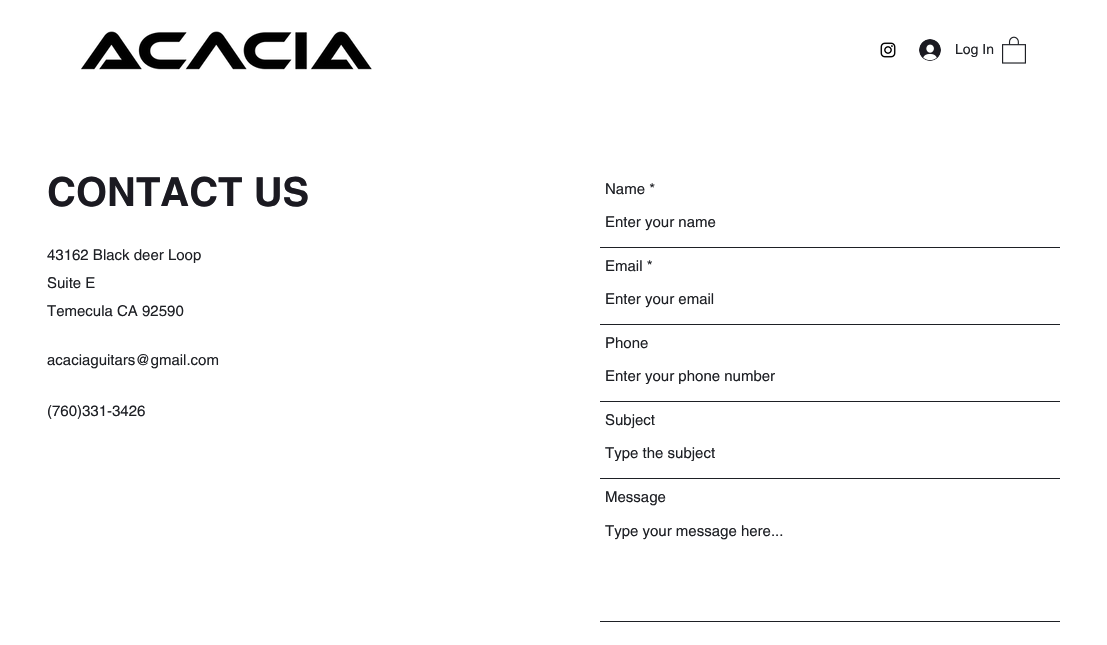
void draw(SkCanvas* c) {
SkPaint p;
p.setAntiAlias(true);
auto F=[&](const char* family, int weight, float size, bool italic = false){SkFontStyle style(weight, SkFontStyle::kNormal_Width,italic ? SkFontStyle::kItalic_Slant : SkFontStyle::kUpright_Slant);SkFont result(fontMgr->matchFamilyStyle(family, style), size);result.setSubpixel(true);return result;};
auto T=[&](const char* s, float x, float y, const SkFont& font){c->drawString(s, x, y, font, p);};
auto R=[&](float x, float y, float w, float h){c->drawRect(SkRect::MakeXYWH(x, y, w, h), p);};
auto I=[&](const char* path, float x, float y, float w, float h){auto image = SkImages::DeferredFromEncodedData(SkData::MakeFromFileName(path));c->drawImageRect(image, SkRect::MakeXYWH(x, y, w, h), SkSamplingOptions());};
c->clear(0xffffffff);
I("1.png",81,31,291,39);
I("2.png",880,42,16,16);
I("3.png",919,39,22,22);
auto f1 = F("helvetica",400,14);
p.setColor(0xff1e2025);
T("Log In",955,54,f1);
I("4.png",1002,36,24,28);
auto f2 = F("helvetica",700,40);
p.setColor(0xff1b1a21);
T("CONTACT US",47,206,f2);
auto f3 = F("helvetica",400,15);
p.setColor(0xff1e2025);
T("43162 Black deer Loop",47,260,f3);
T("Suite E",47,288,f3);
T("Temecula CA 92590",47,316,f3);
T("acaciaguitars@gmail.com",47,365,f3);
T("(760)331-3426",47,416,f3);
T("Name *",605,194,f3);
R(600,247,460,1);
T("Enter your name",605,227,f3);
T("Email *",605,271,f3);
R(600,324,460,1);
T("Enter your email",605,304,f3);
T("Phone",605,348,f3);
R(600,401,460,1);
c->save();
c->clipRect(SkRect::MakeXYWH(605,367,452,17));
T("Enter your phone number",605,381,f3);
c->restore();
T("Subject",605,425,f3);
R(600,478,460,1);
c->save();
c->clipRect(SkRect::MakeXYWH(605,444,452,17));
T("Type the subject",605,458,f3);
c->restore();
T("Message",605,502,f3);
R(600,621,460,1);
T("Type your message here...",605,536,f3);
}
